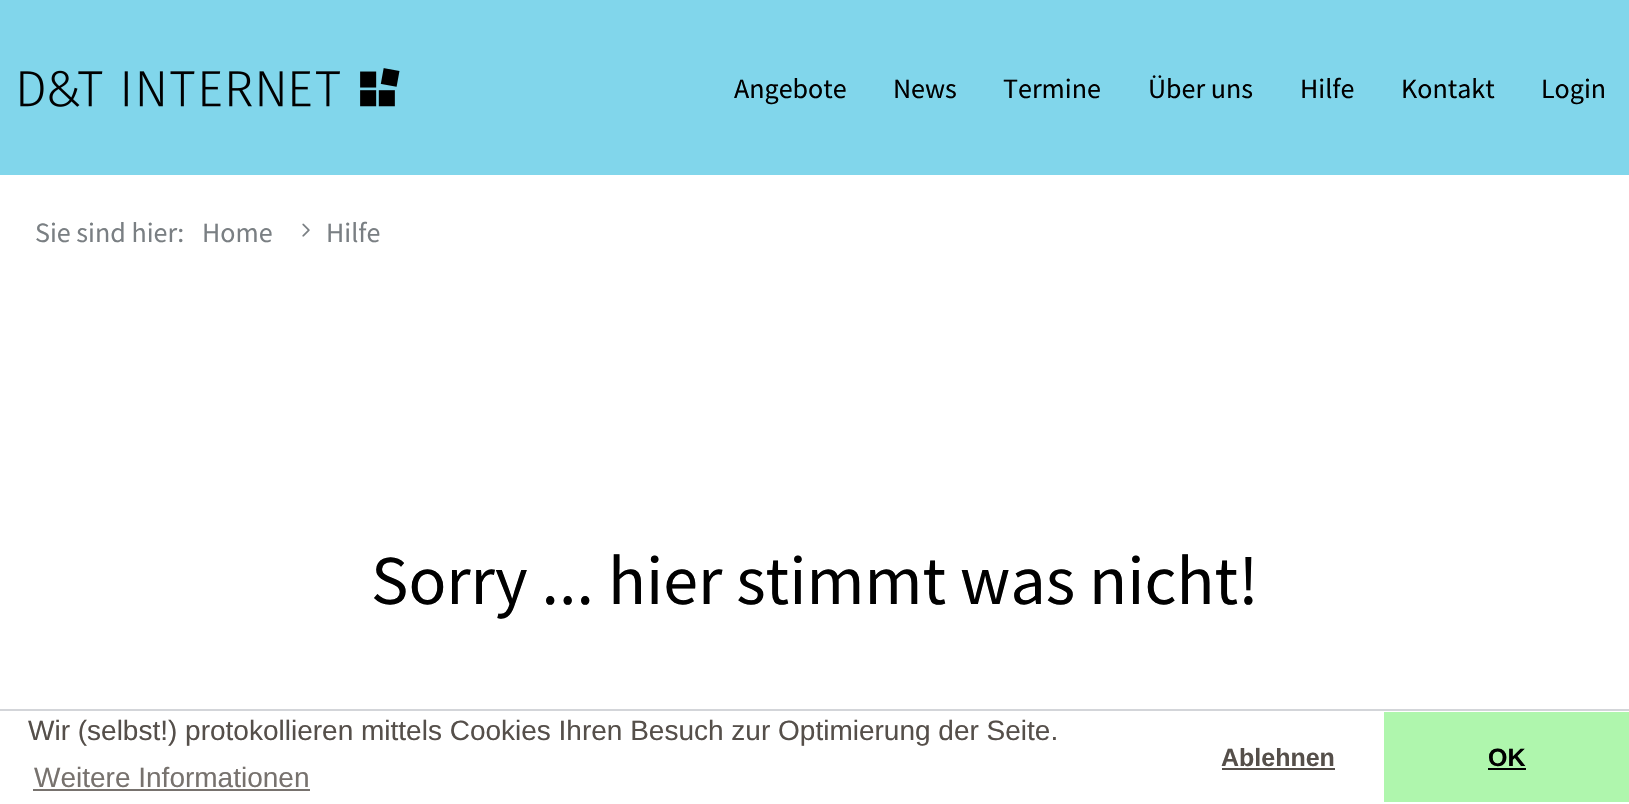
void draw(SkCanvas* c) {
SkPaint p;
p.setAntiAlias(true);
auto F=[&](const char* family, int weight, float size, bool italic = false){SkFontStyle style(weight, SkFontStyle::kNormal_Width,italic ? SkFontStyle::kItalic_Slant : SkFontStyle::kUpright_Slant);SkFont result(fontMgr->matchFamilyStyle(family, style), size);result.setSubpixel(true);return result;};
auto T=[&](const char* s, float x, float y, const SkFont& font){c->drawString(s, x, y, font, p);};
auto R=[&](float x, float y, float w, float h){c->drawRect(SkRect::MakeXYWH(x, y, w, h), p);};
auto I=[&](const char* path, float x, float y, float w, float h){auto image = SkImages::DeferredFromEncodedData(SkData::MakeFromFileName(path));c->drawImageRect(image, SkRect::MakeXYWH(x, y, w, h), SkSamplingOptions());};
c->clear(0xffffffff);
p.setColor(0xff81d6eb);
R(0,0,1629,175);
I("1.png",20,68,380,39);
auto f1 = F("Source Sans Pro",400,28);
p.setColor(0xff000000);
T("Angebote",734,98,f1);
T("News",893,98,f1);
T("Termine",1003,98,f1);
T("Über uns",1148,98,f1);
T("Hilfe",1300,98,f1);
T("Kontakt",1401,98,f1);
T("Login",1541,98,f1);
p.setColor(0xff7a7f83);
T("Sie sind hier:",35,242,f1);
T("Home",202,242,f1);
I("2.png",302,223,8,14);
T("Hilfe",326,242,f1);
auto f2 = F("Source Sans Pro",400,70);
p.setColor(0xff000000);
T("Sorry ... hier stimmt was nicht!",371,604,f2);
p.setColor(0xffd3d5d9);
R(0,709,1629,2);
auto f3 = F("Liberation Sans",400,28);
p.setColor(0xff554f4a);
T("Wir (selbst!) protokollieren mittels Cookies Ihren Besuch zur Optimierung der Seite.",28,740,f3);
p.setColor(0xff77726e);
T("Weitere Informationen",34,787,f3);
R(33,789,277,2);
auto f4 = F("Liberation Sans",700,25);
p.setColor(0xff554f4a);
T("Ablehnen",1221,766,f4);
R(1222,768,113,2);
p.setColor(0xffaff6ad);
R(1384,712,245,90);
p.setColor(0xff000000);
T("OK",1488,766,f4);
R(1488,768,38,2);
}
